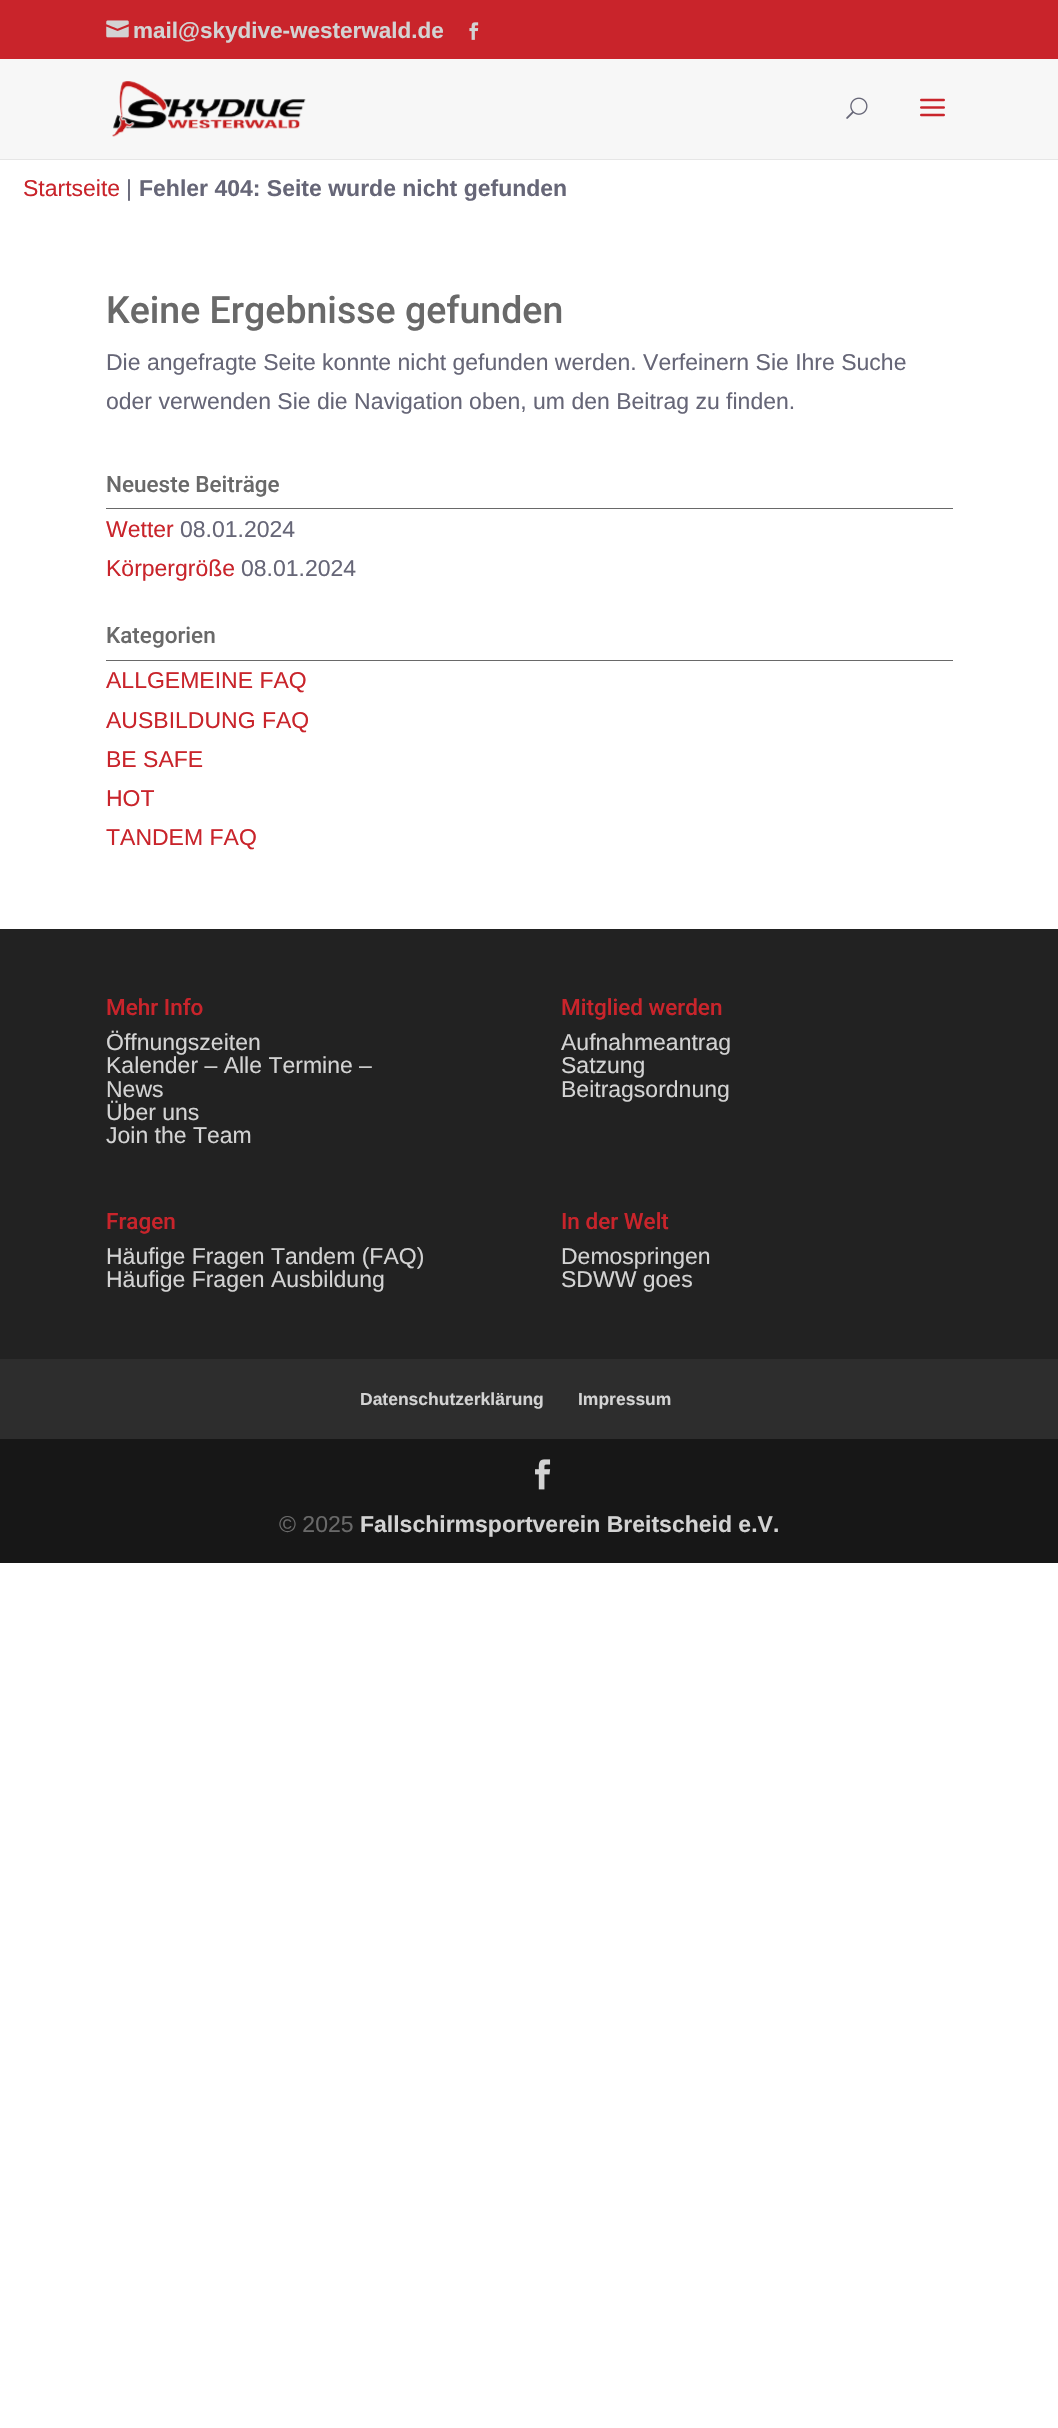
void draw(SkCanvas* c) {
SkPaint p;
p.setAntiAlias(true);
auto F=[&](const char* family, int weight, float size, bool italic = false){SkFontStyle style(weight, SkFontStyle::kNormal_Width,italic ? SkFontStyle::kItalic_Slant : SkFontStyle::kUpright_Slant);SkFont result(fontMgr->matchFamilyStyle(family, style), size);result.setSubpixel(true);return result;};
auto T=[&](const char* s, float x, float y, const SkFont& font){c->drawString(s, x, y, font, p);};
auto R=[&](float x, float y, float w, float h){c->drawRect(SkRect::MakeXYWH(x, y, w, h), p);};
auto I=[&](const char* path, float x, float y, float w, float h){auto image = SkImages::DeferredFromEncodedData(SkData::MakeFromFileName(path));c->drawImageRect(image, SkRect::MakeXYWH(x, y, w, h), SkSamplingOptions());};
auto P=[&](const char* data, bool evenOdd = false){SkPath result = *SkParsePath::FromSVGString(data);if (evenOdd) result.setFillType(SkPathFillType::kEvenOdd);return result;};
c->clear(0xffffffff);
p.setColor(0xffc9242b);
R(0,0,1058,59);
I("1.png",106,20,23,18);
auto f1 = F("Liberation Sans",700,22.5);
p.setColor(0xffd3d3d3);
T("mail@skydive-westerwald.de",133,38,f1);
I("2.png",469,22,10,18);
p.setColor(0xffe6e6e6);
c->drawPath(P("M0 159v1h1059v-100v99z"),p);
p.setColor(0xfff7f7f7);
R(0,59,1058,100);
I("3.png",112,81,194,56);
I("4.png",846,97,22,22);
I("5.png",920,98,25,19);
auto f2 = F("Liberation Sans",400,23);
p.setColor(0xffc9242b);
T("Startseite",23,196,f2);
p.setColor(0xff666677);
T("|",126,196,f2);
auto f3 = F("Liberation Sans",700,23);
T("Fehler 404: Seite wurde nicht gefunden",139,196,f3);
auto f4 = F("Roboto",500,37.5);
p.setColor(0xff696969);
T("Keine Ergebnisse gefunden",106,323,f4);
p.setColor(0xff666677);
T("Die angefragte Seite konnte nicht gefunden werden. Verfeinern Sie Ihre Suche",106,370,f2);
T("oder verwenden Sie die Navigation oben, um den Beitrag zu finden.",106,409,f2);
p.setColor(0xff696969);
R(106,508,847,1);
auto f5 = F("Roboto",500,22.5);
T("Neueste Beiträge",106,492,f5);
p.setColor(0xffc9242b);
T("Wetter",106,537,f2);
p.setColor(0xff666677);
T("08.01.2024",180,537,f2);
p.setColor(0xffc9242b);
T("Körpergröße",106,576,f2);
p.setColor(0xff666677);
T("08.01.2024",241,576,f2);
p.setColor(0xff696969);
R(106,660,847,1);
T("Kategorien",106,643,f5);
p.setColor(0xffc9242b);
T("ALLGEMEINE FAQ",106,688,f2);
T("AUSBILDUNG FAQ",106,728,f2);
T("BE SAFE",106,767,f2);
T("HOT",106,806,f2);
T("TANDEM FAQ",106,845,f2);
p.setColor(0xff222222);
R(0,929,1058,430);
p.setColor(0xffc9242b);
T("Mehr Info",106,1015,f5);
p.setColor(0xffd3d3d3);
T("Öffnungszeiten",106,1050,f2);
T("Kalender – Alle Termine –",106,1073,f2);
T("News",106,1097,f2);
T("Über uns",106,1120,f2);
T("Join the Team",106,1143,f2);
p.setColor(0xffc9242b);
T("Mitglied werden",561,1015,f5);
p.setColor(0xffd3d3d3);
T("Aufnahmeantrag",561,1050,f2);
T("Satzung",561,1073,f2);
T("Beitragsordnung",561,1097,f2);
p.setColor(0xffc9242b);
T("Fragen",106,1229,f5);
p.setColor(0xffd3d3d3);
T("Häufige Fragen Tandem (FAQ)",106,1264,f2);
T("Häufige Fragen Ausbildung",106,1287,f2);
p.setColor(0xffc9242b);
T("In der Welt",561,1229,f5);
p.setColor(0xffd3d3d3);
T("Demospringen",561,1264,f2);
T("SDWW goes",561,1287,f2);
p.setColor(0xff2d2d2d);
R(0,1359,1058,80);
auto f6 = F("Liberation Sans",700,17.5);
p.setColor(0xffd3d3d3);
T("Datenschutzerklärung",360,1405,f6);
T("Impressum",578,1405,f6);
p.setColor(0xff171717);
R(0,1439,1058,124);
I("6.png",535,1459,16,31);
p.setColor(0xff696969);
T("© 2025",279,1532,f2);
p.setColor(0xffd3d3d3);
T("Fallschirmsportverein Breitscheid e.V.",360,1532,f3);
}
